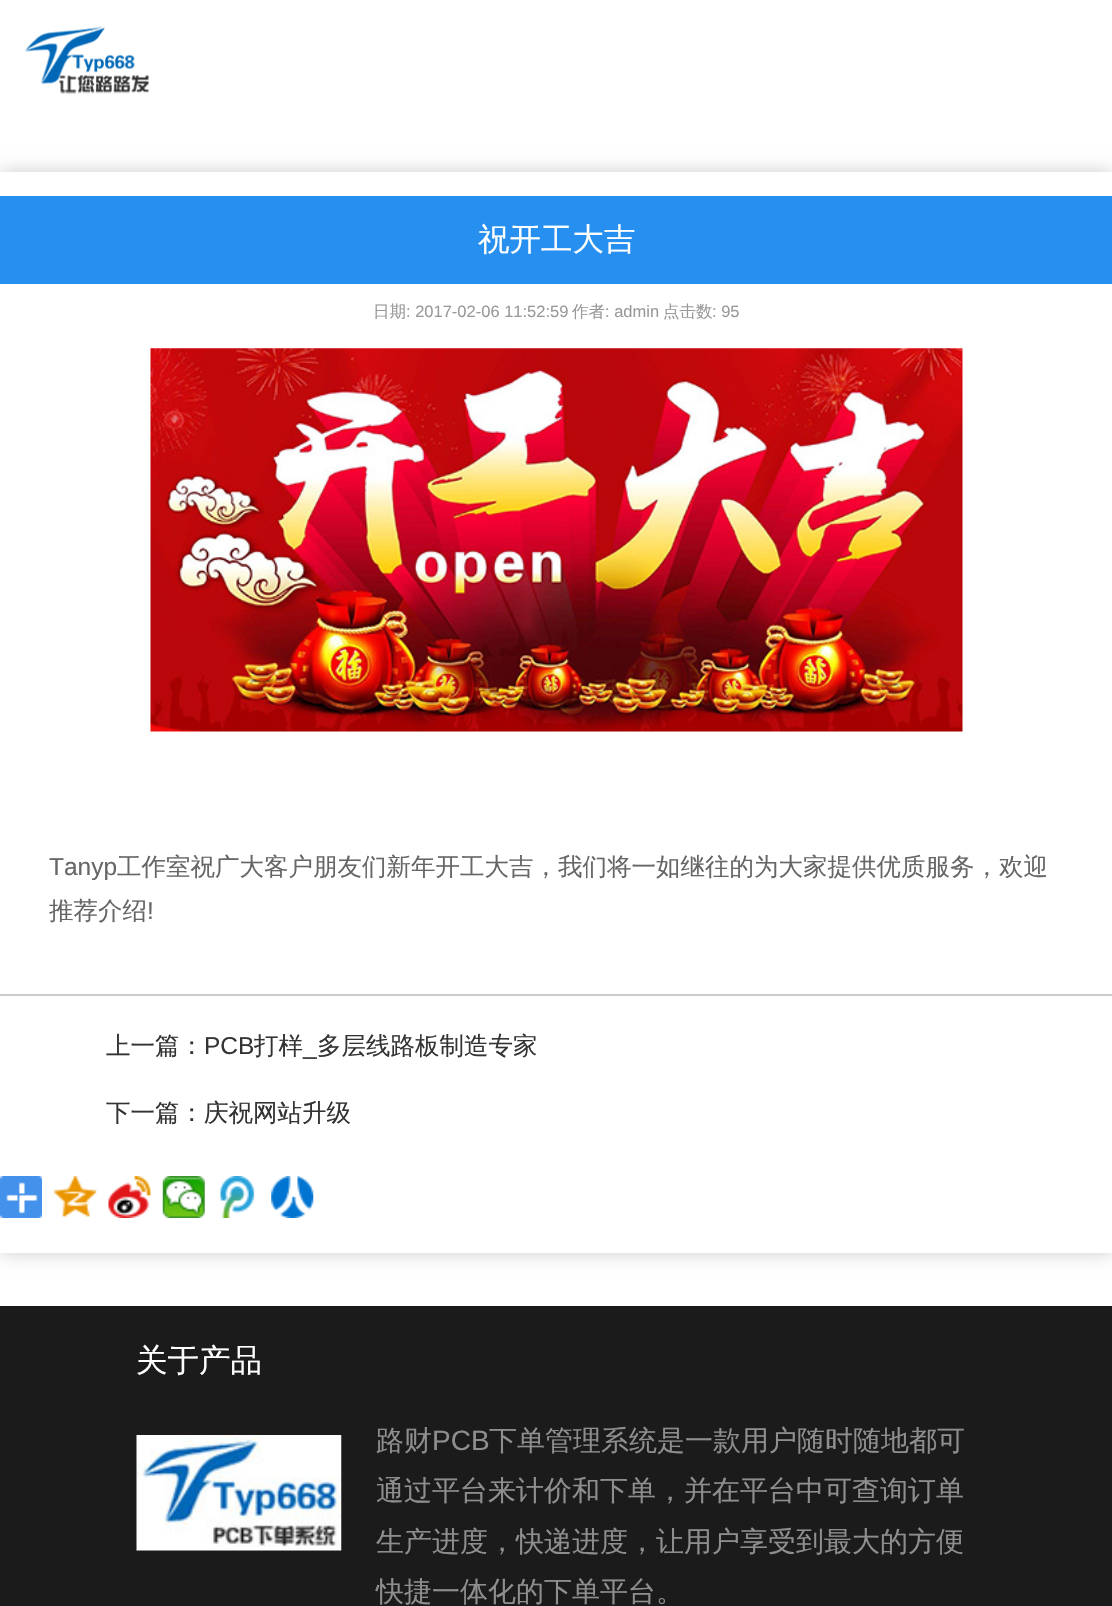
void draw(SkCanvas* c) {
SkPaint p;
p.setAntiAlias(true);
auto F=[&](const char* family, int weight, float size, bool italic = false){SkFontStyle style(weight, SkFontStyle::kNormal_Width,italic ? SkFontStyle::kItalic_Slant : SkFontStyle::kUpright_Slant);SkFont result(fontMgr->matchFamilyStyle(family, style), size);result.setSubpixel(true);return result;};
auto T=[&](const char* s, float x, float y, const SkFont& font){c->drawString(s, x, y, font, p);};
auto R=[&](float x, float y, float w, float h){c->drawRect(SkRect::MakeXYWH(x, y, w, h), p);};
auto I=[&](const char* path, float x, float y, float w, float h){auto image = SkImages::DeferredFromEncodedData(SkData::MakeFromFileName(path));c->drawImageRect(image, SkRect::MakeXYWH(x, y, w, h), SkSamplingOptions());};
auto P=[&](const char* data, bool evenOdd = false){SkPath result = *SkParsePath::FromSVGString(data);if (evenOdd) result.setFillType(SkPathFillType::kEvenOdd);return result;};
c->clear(0xffffffff);
I("1.png",25,26,124,68);
c->save();
c->clipPath(P("M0 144h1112v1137h-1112zm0 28h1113v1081h-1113z",true),true);
p.setColor(0x33000000);
p.setMaskFilter(SkMaskFilter::MakeBlur(kNormal_SkBlurStyle, 9));
c->drawRect(SkRect::MakeXYWH(0,172,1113,1081),p);
p.setMaskFilter(nullptr);
c->restore();
p.setColor(0xff268ff0);
R(0,196,1112,88);
auto f1 = F("WenQuanYi Zen Hei",500,31.5);
p.setColor(0xffffffff);
T("祝开工大吉",478,250,f1);
auto f2 = F("WenQuanYi Zen Hei",500,16.5);
p.setColor(0xff999999);
T("日期",373,317,f2);
auto f3 = F("Liberation Sans",400,16.5);
T(": 2017-02-06 11:52:59",406,317,f3);
T("作者",572,317,f2);
T(": admin",605,317,f3);
T("点击数",663,317,f2);
T(": 95",712,317,f3);
I("2.png",150,348,813,384);
auto f4 = F("Liberation Sans",400,24.5);
p.setColor(0xff666666);
T("Tanyp",49,875,f4);
auto f5 = F("WenQuanYi Zen Hei",500,24.5);
T("工作室祝广大客户朋友们新年开工大吉，我们将一如继往的为大家提供优质服务，欢迎",117,875,f5);
T("推荐介绍",49,919,f5);
T("!",147,919,f4);
p.setColor(0xffcccccc);
R(0,994,1112,2);
p.setColor(0xff333333);
T("上一篇：",106,1054,f5);
T("PCB",204,1054,f4);
T("打样",254,1054,f5);
T("多层线路板制造专家",317,1054,f5);
T("_",303,1054,f4);
T("下一篇：庆祝网站升级",106,1121,f5);
I("3.png",0,1176,42,42);
I("4.png",54,1176,43,41);
I("5.png",108,1176,43,42);
I("6.png",162,1176,43,42);
I("7.png",220,1176,35,42);
I("8.png",271,1176,43,42);
p.setColor(0xff1b1b1b);
R(0,1306,1112,300);
p.setColor(0xffffffff);
T("关于产品",136,1371,f1);
I("9.png",136,1435,206,116);
auto f6 = F("WenQuanYi Zen Hei",500,28);
p.setColor(0xff8e8e8e);
T("路财",376,1450,f6);
auto f7 = F("Liberation Sans",400,28);
T("PCB",432,1450,f7);
T("下单管理系统是一款用户随时随地都可",489,1450,f6);
T("通过平台来计价和下单，并在平台中可查询订单",376,1500,f6);
T("生产进度，快递进度，让用户享受到最大的方便",376,1551,f6);
T("快捷一体化的下单平台。",376,1601,f6);
}
